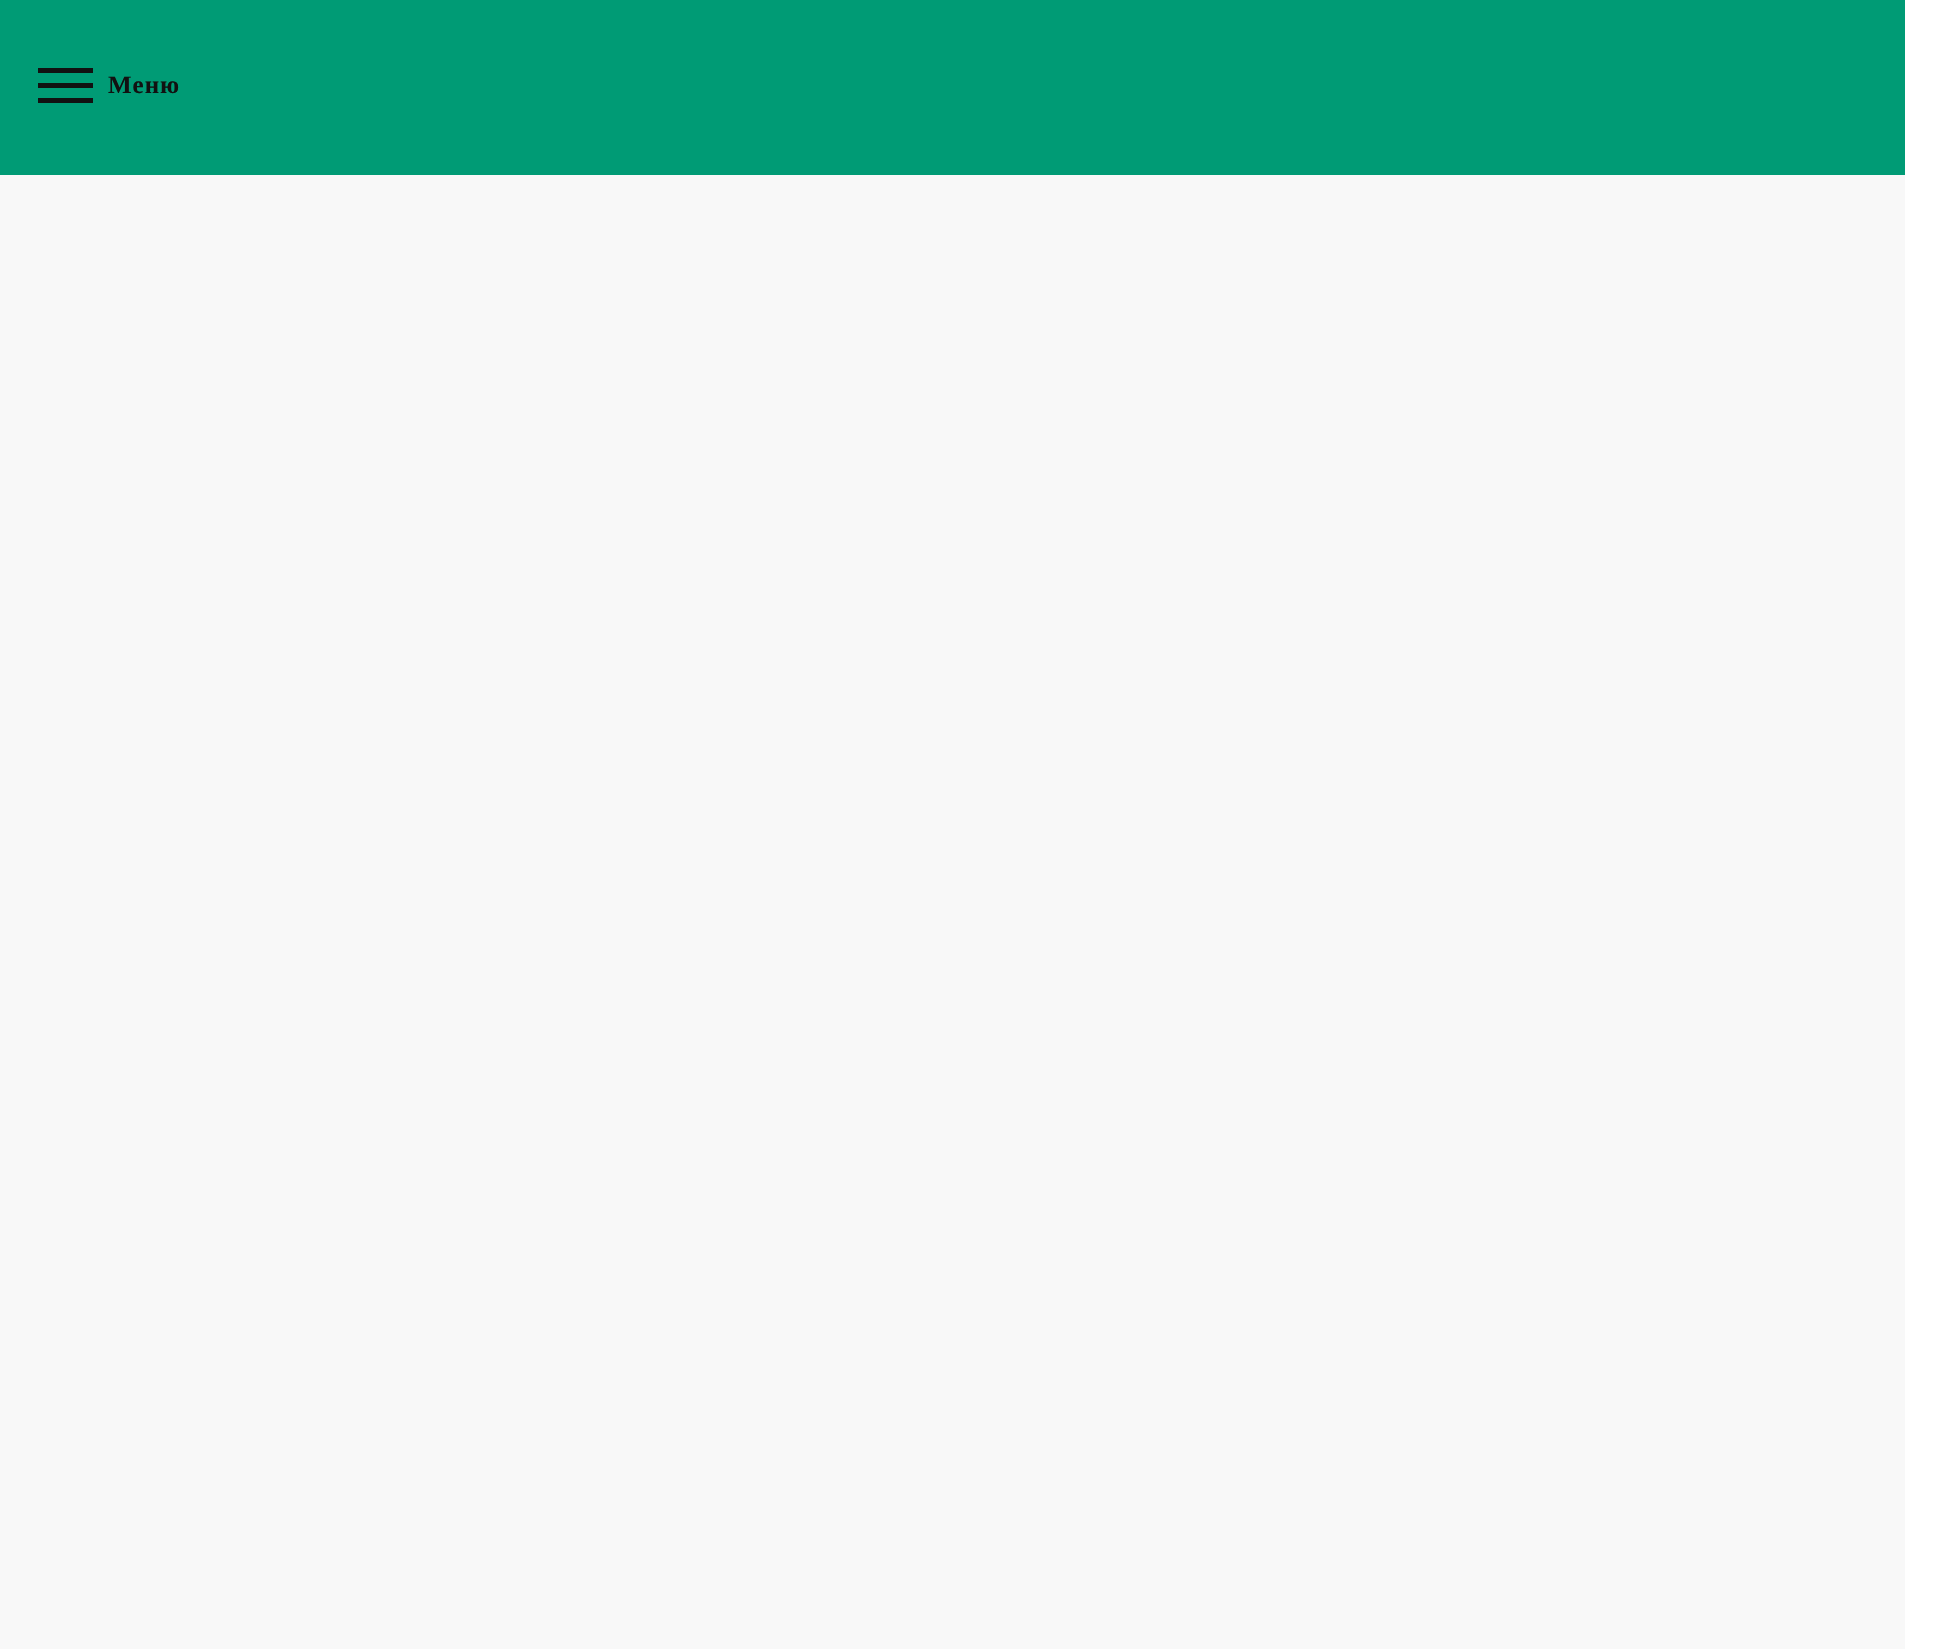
void draw(SkCanvas* c) {
SkPaint p;
p.setAntiAlias(true);
auto F=[&](const char* family, int weight, float size, bool italic = false){SkFontStyle style(weight, SkFontStyle::kNormal_Width,italic ? SkFontStyle::kItalic_Slant : SkFontStyle::kUpright_Slant);SkFont result(fontMgr->matchFamilyStyle(family, style), size);result.setSubpixel(true);return result;};
auto L=[&](const char* s, float x, float y, const SkFont& font, const SkPaint& ink, float letter, float word){std::vector<SkGlyphID> glyphs(font.countText(s, strlen(s), SkTextEncoding::kUTF8));std::vector<float> xs(glyphs.size());font.textToGlyphs(s, strlen(s), SkTextEncoding::kUTF8, glyphs);font.getXPos(glyphs, xs, x);float extra = 0;for (size_t i = 0; i < glyphs.size(); i++) {xs[i] += extra;extra += letter + word * (glyphs[i] == font.unicharToGlyph(' '));}c->drawTextBlob(SkTextBlob::MakeFromPosHGlyphs(glyphs, xs, y, font), 0, 0, ink);};
auto R=[&](float x, float y, float w, float h){c->drawRect(SkRect::MakeXYWH(x, y, w, h), p);};
c->clear(0xffffffff);
p.setColor(0xff009b75);
R(0,0,1905,175);
p.setColor(0xff111111);
R(38,68,55,5);
R(38,83,55,5);
auto f1 = F("Liberation Serif",700,25);
L("Меню",108,93,f1,p,1,0);
R(38,98,55,5);
p.setColor(0xfff8f8f8);
R(0,175,1905,1474);
}
